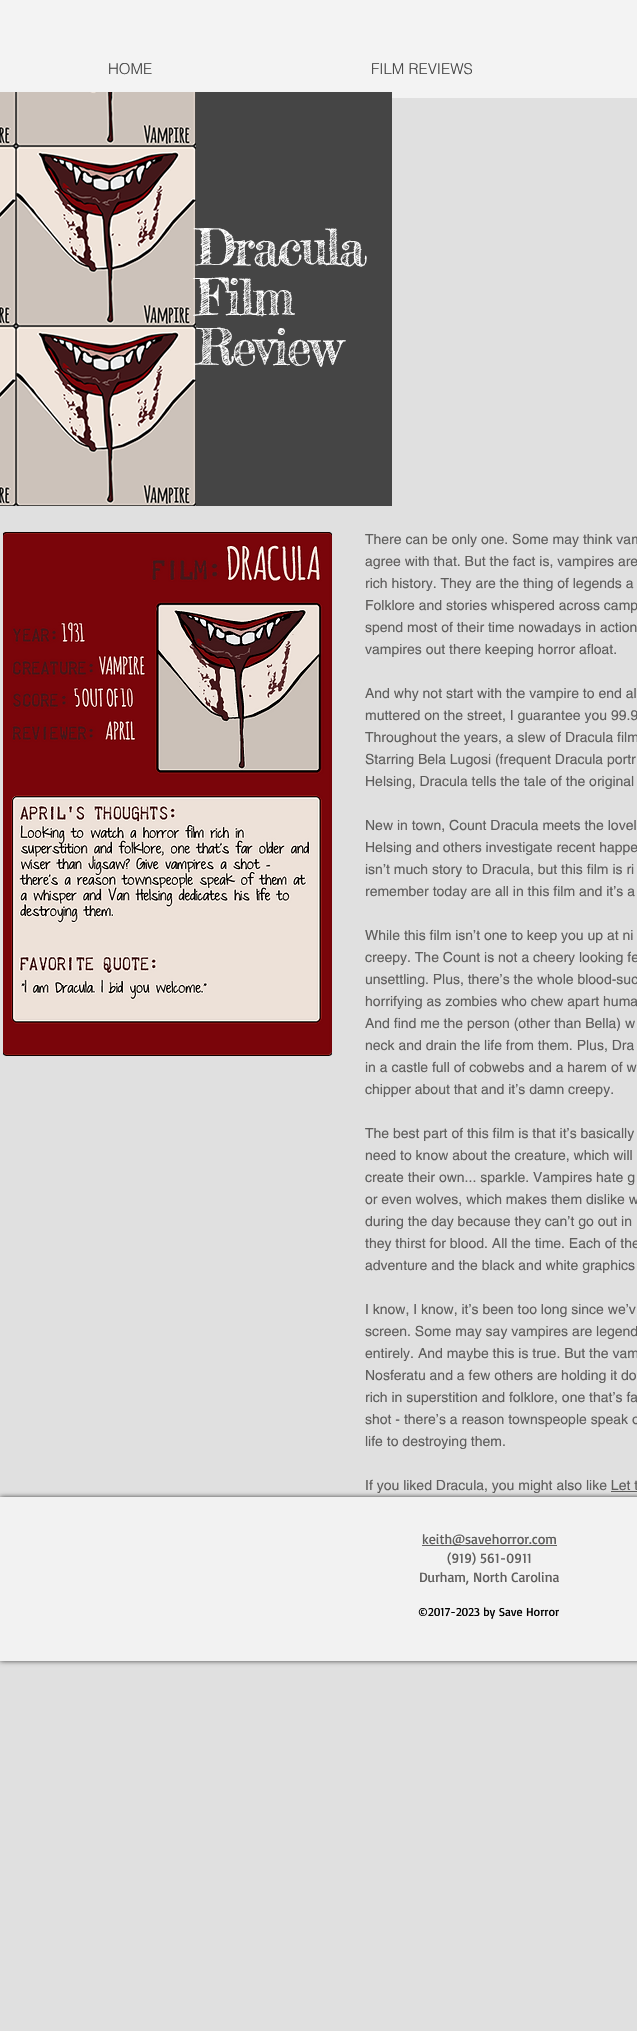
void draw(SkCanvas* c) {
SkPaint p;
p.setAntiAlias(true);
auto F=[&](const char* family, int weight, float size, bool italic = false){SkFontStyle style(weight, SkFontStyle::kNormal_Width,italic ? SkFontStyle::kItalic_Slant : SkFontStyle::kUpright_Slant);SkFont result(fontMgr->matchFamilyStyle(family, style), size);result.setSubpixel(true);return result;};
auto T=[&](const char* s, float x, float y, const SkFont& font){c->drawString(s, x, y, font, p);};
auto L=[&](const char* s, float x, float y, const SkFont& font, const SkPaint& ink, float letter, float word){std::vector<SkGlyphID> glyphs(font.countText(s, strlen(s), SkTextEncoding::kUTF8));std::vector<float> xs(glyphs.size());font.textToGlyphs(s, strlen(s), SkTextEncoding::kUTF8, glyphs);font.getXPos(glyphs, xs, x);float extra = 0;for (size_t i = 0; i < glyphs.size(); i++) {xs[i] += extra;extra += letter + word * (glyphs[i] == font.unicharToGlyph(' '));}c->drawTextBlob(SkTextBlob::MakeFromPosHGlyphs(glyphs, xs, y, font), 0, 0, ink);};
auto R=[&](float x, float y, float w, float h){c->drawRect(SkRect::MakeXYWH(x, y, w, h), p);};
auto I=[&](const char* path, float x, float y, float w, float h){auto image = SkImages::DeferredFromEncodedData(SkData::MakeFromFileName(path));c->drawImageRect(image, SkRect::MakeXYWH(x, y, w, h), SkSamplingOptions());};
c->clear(0xffe0e0e0);
p.setColor(0xfff3f3f3);
R(0,0,637,98);
auto f1 = F("helvetica",300,15);
p.setColor(0xff444444);
T("HOME",108,74,f1);
T("FILM REVIEWS",371,74,f1);
I("1.png",0,92,196,414);
p.setColor(0xff454545);
R(196,92,196,414);
auto f2 = F("Fredericka the Great",400,50);
p.setColor(0xffffffff);
L("Dracula",196,265,f2,p,-2.5,0);
L("Film",196,315,f2,p,-2.5,0);
L("Review",196,365,f2,p,-2.5,0);
I("2.png",3,532,329,524);
auto f3 = F("helvetica",400,14);
p.setColor(0xff5f5e5d);
T("There can be only one. Some may think vam",365,544,f3);
T("agree with that. But the fact is, vampires are",365,566,f3);
T("rich history. They are the thing of legends a",365,588,f3);
T("Folklore and stories whispered across camp",365,610,f3);
T("spend most of their time nowadays in action",365,632,f3);
T("vampires out there keeping horror afloat.",365,654,f3);
T("And why not start with the vampire to end al",365,698,f3);
T("muttered on the street, I guarantee you 99.9",365,720,f3);
T("Throughout the years, a slew of Dracula film",365,742,f3);
T("Starring Bela Lugosi (frequent Dracula portr",365,764,f3);
T("Helsing, Dracula tells the tale of the original",365,786,f3);
T("New in town, Count Dracula meets the lovel",365,830,f3);
T("Helsing and others investigate recent happe",365,852,f3);
T("isn’t much story to Dracula, but this film is ri",365,874,f3);
T("remember today are all in this film and it’s a",365,896,f3);
T("While this film isn’t one to keep you up at ni",365,940,f3);
T("creepy. The Count is not a cheery looking fe",365,962,f3);
T("unsettling. Plus, there’s the whole blood-suc",365,984,f3);
T("horrifying as zombies who chew apart huma",365,1006,f3);
T("And find me the person (other than Bella) w",365,1028,f3);
T("neck and drain the life from them. Plus, Dra",365,1050,f3);
T("in a castle full of cobwebs and a harem of w",365,1072,f3);
T("chipper about that and it’s damn creepy.",365,1094,f3);
T("The best part of this film is that it’s basically",365,1138,f3);
T("need to know about the creature, which will",365,1160,f3);
T("create their own... sparkle. Vampires hate g",365,1182,f3);
T("or even wolves, which makes them dislike w",365,1204,f3);
T("during the day because they can’t go out in",365,1226,f3);
T("they thirst for blood. All the time. Each of the",365,1248,f3);
T("adventure and the black and white graphics",365,1270,f3);
T("I know, I know, it’s been too long since we’v",365,1314,f3);
T("screen. Some may say vampires are legend",365,1336,f3);
T("entirely. And maybe this is true. But the vam",365,1358,f3);
T("Nosferatu and a few others are holding it do",365,1380,f3);
T("rich in superstition and folklore, one that’s fa",365,1402,f3);
T("shot - there’s a reason townspeople speak o",365,1424,f3);
T("life to destroying them.",365,1446,f3);
T("If you liked Dracula, you might also like Let t",365,1490,f3);
R(611,1491,26,1);
p.setColor(0xb3000000);
p.setMaskFilter(SkMaskFilter::MakeBlur(kNormal_SkBlurStyle, 2.5));
c->drawRect(SkRect::MakeXYWH(0,1497,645,164),p);
p.setMaskFilter(nullptr);
p.setColor(0xfff2f2f2);
R(0,1497,637,164);
p.setColor(0xff5f5e5d);
R(422,1545,135,1);
auto f4 = F("Basic",400,14);
T("keith@savehorror.com",422,1544,f4);
T("(919) 561-0911",447,1563,f4);
T("Durham, North Carolina",419,1582,f4);
auto f5 = F("Basic",400,12);
p.setColor(0xff000000);
T("©2017-2023 by Save Horror",418,1616,f5);
}
